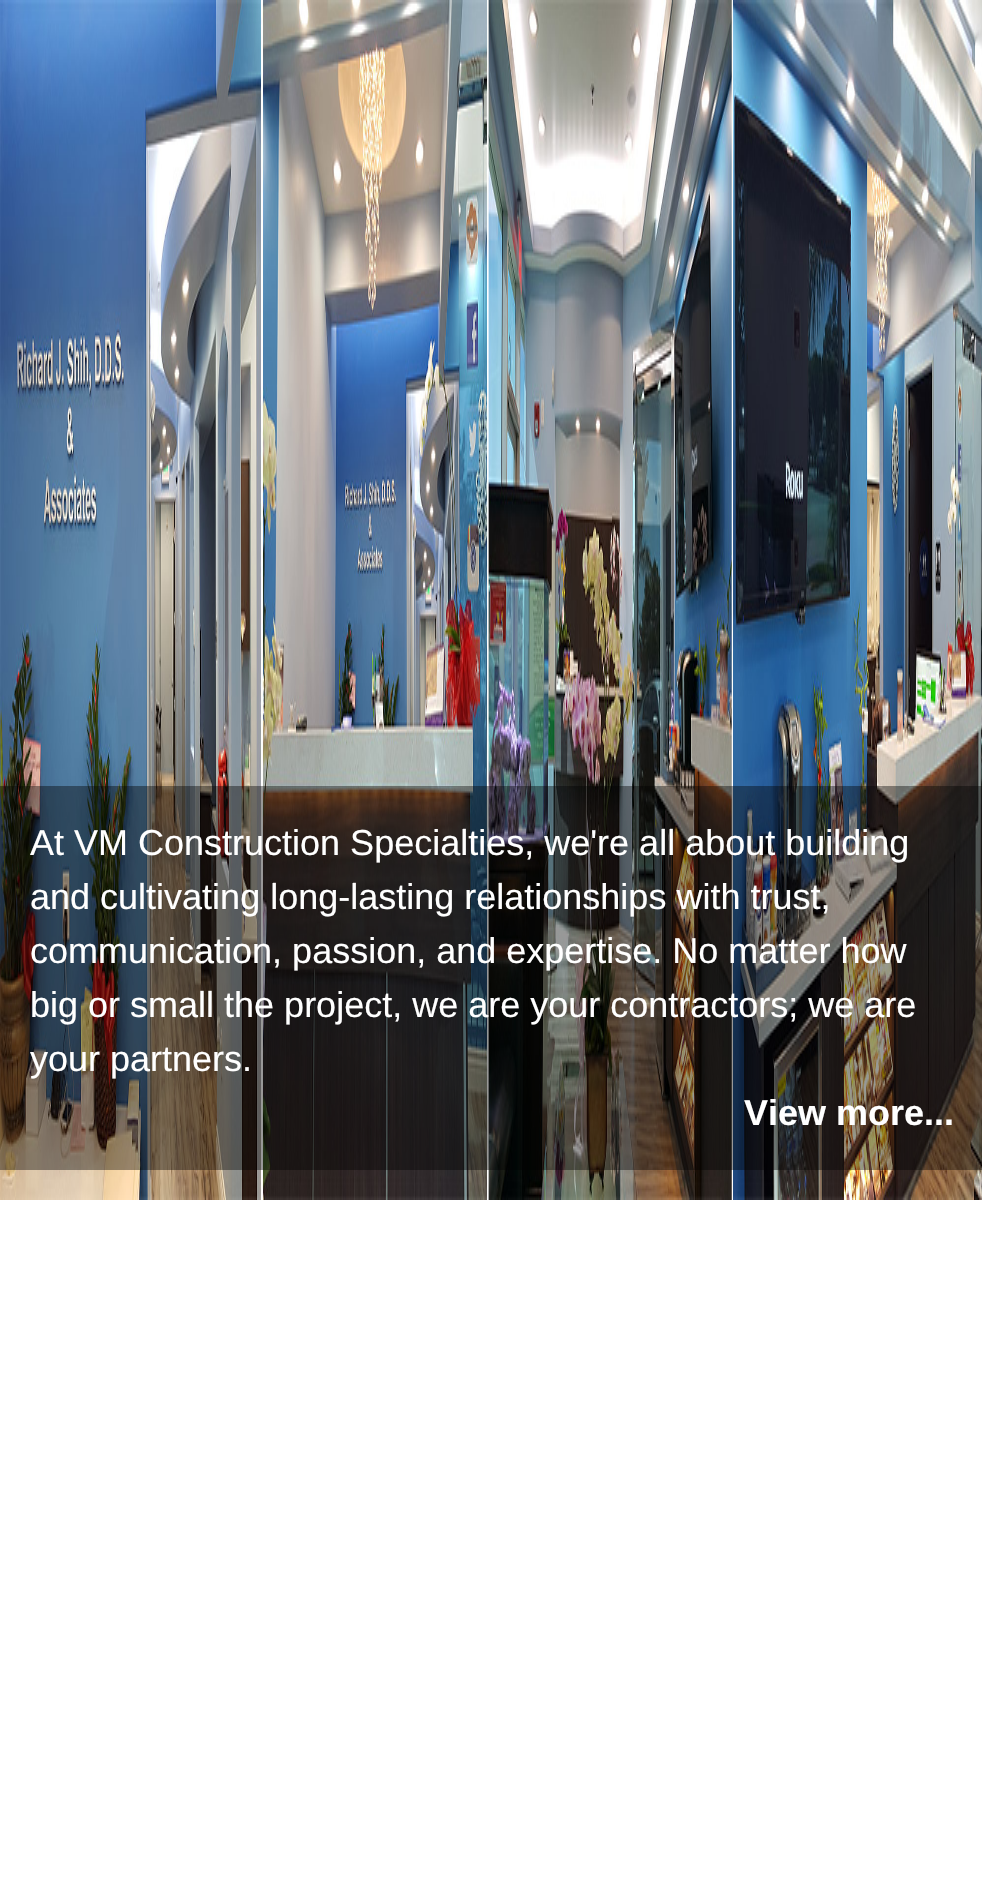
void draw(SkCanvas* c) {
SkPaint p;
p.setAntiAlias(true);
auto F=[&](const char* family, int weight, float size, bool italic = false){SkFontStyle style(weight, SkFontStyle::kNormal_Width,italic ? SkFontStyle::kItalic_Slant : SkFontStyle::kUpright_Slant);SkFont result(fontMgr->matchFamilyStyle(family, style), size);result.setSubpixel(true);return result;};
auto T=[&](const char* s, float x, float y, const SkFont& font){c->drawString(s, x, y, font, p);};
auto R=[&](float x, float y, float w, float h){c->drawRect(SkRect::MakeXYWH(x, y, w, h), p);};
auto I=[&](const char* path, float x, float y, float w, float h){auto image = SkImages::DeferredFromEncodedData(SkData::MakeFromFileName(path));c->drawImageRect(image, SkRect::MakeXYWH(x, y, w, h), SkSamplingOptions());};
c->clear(0xffffffff);
I("1.png",0,0,982,1200);
p.setColor(0x66000000);
R(0,786,982,384);
auto f1 = F("Liberation Sans",400,36);
p.setColor(0xffffffff);
T("At VM Construction Specialties, we're all about building",30,855,f1);
T("and cultivating long-lasting relationships with trust,",30,909,f1);
T("communication, passion, and expertise. No matter how",30,963,f1);
T("big or small the project, we are your contractors; we are",30,1017,f1);
T("your partners.",30,1071,f1);
auto f2 = F("Liberation Sans",700,36);
T("View more...",744,1125,f2);
}
